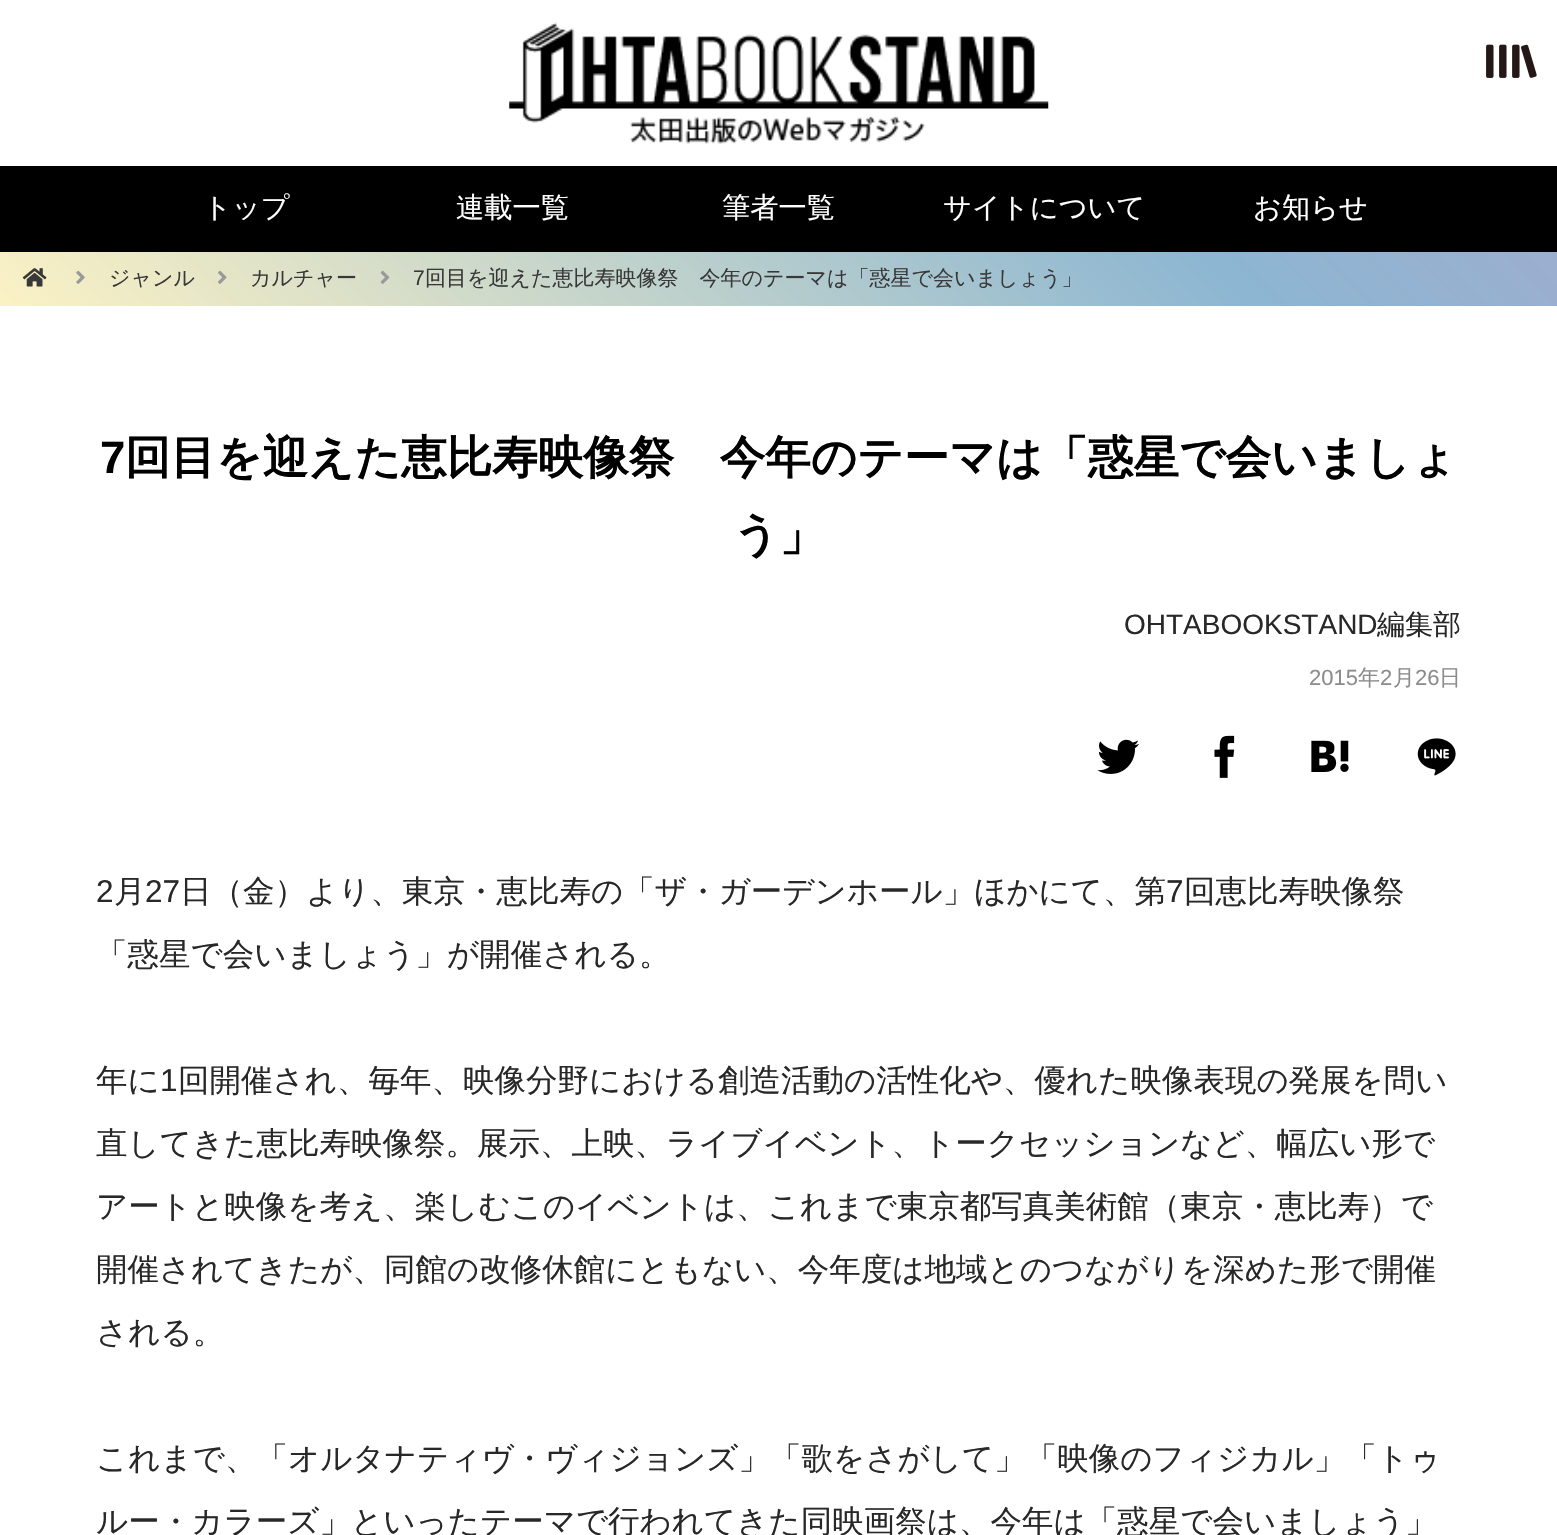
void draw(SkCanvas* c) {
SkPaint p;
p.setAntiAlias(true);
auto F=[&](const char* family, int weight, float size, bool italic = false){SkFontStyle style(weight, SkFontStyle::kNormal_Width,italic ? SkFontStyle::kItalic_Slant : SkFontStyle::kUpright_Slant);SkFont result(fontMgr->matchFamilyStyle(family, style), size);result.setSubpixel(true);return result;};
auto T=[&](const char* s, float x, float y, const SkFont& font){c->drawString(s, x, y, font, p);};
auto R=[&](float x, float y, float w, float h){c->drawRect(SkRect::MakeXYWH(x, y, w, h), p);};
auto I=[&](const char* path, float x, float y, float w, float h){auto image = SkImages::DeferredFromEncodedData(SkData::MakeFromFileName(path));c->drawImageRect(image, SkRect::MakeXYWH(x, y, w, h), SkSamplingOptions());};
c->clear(0xffffffff);
I("1.png",509,22,540,122);
I("2.png",1486,44,51,34);
p.setColor(0xff000000);
R(0,166,1557,86);
auto f1 = F("WenQuanYi Zen Hei",500,28.25);
p.setColor(0xffffffff);
T("トップ",203,217,f1);
T("連載一覧",456,217,f1);
T("筆者一覧",722,217,f1);
T("サイトについて",943,217,f1);
T("お知らせ",1253,217,f1);
{
const SkColor colors[] = {0xfffef3c4,0xff8cb6d2,0xffc69ac9};
const float stops[] = {0,.5,1};
const SkPoint ends[] = {{601,940}, {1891,-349}};
p.setShader(SkGradientShader::MakeLinear(ends, colors, stops, 3, SkTileMode::kClamp));
p.setAlpha(255);
}
R(0,252,1557,54);
I("3.png",22,268,25,19);
I("4.png",76,270,9,14);
auto f2 = F("WenQuanYi Zen Hei",500,21);
p.setShader(nullptr);
p.setColor(0xff383838);
T("ジャンル",109,285,f2);
I("5.png",218,270,9,14);
T("カルチャー",250,285,f2);
I("6.png",380,270,10,14);
auto f3 = F("Liberation Sans",400,21);
T("7",413,285,f3);
T("回目を迎えた恵比寿映像祭　今年のテーマは「惑星で会いましょう」",425,285,f2);
auto f4 = F("Liberation Sans",700,45.5);
p.setColor(0xff000000);
T("7",100,473,f4);
auto f5 = F("WenQuanYi Zen Hei",700,45.5);
T("回目を迎えた恵比寿映像祭　今年のテーマは「惑星で会いましょ",125,473,f5);
T("う」",733,550,f5);
auto f6 = F("Liberation Sans",400,28);
p.setColor(0xff282828);
T("OHTABOOKSTAND",1124,634,f6);
auto f7 = F("WenQuanYi Zen Hei",500,28);
T("編集部",1377,634,f7);
auto f8 = F("Liberation Sans",400,22);
p.setColor(0xff8c8c8c);
T("2015",1309,685,f8);
auto f9 = F("WenQuanYi Zen Hei",500,22);
T("年",1358,685,f9);
T("2",1380,685,f8);
T("月",1393,685,f9);
T("26",1415,685,f8);
T("日",1439,685,f9);
I("7.png",1097,739,42,35);
I("8.png",1214,735,21,43);
I("9.png",1311,740,38,32);
I("10.png",1417,738,39,38);
auto f10 = F("Liberation Sans",400,31.5);
p.setColor(0xff282828);
T("2",96,902,f10);
auto f11 = F("WenQuanYi Zen Hei",500,31.5);
T("月",114,902,f11);
T("27",145,902,f10);
T("日（金）より、東京・恵比寿の「ザ・ガーデンホール」ほかにて、第",180,902,f11);
T("7",1166,902,f10);
T("回恵比寿映像祭",1184,902,f11);
T("「惑星で会いましょう」が開催される。",96,965,f11);
T("年に",96,1091,f11);
T("1",160,1091,f10);
T("回開催され、毎年、映像分野における創造活動の活性化や、優れた映像表現の発展を問い",178,1091,f11);
T("直してきた恵比寿映像祭。展示、上映、ライブイベント、トークセッションなど、幅広い形で",96,1154,f11);
T("アートと映像を考え、楽しむこのイベントは、これまで東京都写真美術館（東京・恵比寿）で",96,1217,f11);
T("開催されてきたが、同館の改修休館にともない、今年度は地域とのつながりを深めた形で開催",96,1280,f11);
T("される。",96,1343,f11);
T("これまで、「オルタナティヴ・ヴィジョンズ」「歌をさがして」「映像のフィジカル」「トゥ",96,1469,f11);
T("ルー・カラーズ」といったテーマで行われてきた同映画祭は、今年は「惑星で会いましょう」",96,1532,f11);
}
